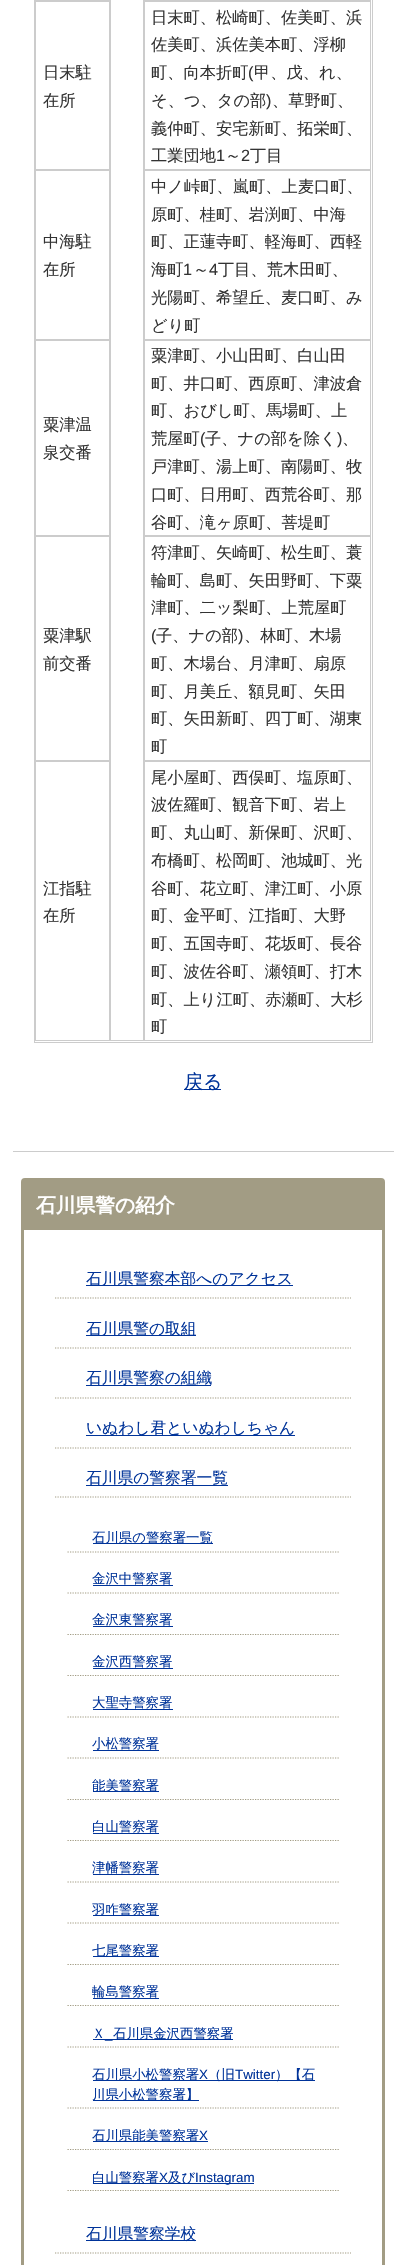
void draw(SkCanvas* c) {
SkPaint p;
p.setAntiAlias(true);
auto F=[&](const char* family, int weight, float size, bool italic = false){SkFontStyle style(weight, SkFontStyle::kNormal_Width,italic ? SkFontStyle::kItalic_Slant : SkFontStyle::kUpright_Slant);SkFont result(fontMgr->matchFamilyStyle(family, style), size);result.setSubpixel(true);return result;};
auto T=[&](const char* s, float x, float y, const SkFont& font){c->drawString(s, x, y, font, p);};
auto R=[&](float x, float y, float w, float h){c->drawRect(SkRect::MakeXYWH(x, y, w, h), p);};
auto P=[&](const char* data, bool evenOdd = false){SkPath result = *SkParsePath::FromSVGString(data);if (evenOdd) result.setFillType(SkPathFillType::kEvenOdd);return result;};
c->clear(0xffffffff);
p.setColor(0xffcccccc);
R(13,1151,381,1);
p.setStroke(true);
p.setStrokeWidth(1);
c->drawRect(SkRect::MakeXYWH(34.5,-.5,338,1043),p);
c->drawRect(SkRect::MakeXYWH(35.5,-.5,74,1),p);
c->drawRect(SkRect::MakeXYWH(144.5,-.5,226,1),p);
c->drawRect(SkRect::MakeXYWH(110.5,-.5,33,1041),p);
c->drawRect(SkRect::MakeXYWH(35.5,1.5,74,168),p);
auto f1 = F("WenQuanYi Zen Hei",500,16.25);
p.setStroke(false);
p.setColor(0xff333333);
T("日末駐",43,78,f1);
T("在所",43,106,f1);
p.setStroke(true);
p.setColor(0xffcccccc);
c->drawRect(SkRect::MakeXYWH(144.5,1.5,226,168),p);
p.setStroke(false);
p.setColor(0xff333333);
T("日末町、松崎町、佐美町、浜",151,23,f1);
T("佐美町、浜佐美本町、浮柳",151,50,f1);
T("町、向本折町",151,78,f1);
auto f2 = F("Liberation Sans",400,16.25);
T("(",248,78,f2);
T("甲、戊、れ、",254,78,f1);
T("そ、つ、タの部",151,106,f1);
T(")",266,106,f2);
T("、草野町、",272,106,f1);
T("義仲町、安宅新町、拓栄町、",151,134,f1);
T("工業団地",151,161,f1);
T("1",216,161,f2);
T("～",225,161,f1);
T("2",241,161,f2);
T("丁目",250,161,f1);
p.setStroke(true);
p.setColor(0xffcccccc);
c->drawRect(SkRect::MakeXYWH(35.5,170.5,74,169),p);
p.setStroke(false);
p.setColor(0xff333333);
T("中海駐",43,247,f1);
T("在所",43,275,f1);
p.setStroke(true);
p.setColor(0xffcccccc);
c->drawRect(SkRect::MakeXYWH(144.5,170.5,226,169),p);
p.setStroke(false);
p.setColor(0xff333333);
T("中ノ峠町、嵐町、上麦口町、",151,192,f1);
T("原町、桂町、岩渕町、中海",151,220,f1);
T("町、正蓮寺町、軽海町、西軽",151,247,f1);
T("海町",151,275,f1);
T("1",183,275,f2);
T("～",193,275,f1);
T("4",209,275,f2);
T("丁目、荒木田町、",218,275,f1);
T("光陽町、希望丘、麦口町、み",151,303,f1);
T("どり町",151,331,f1);
p.setStroke(true);
p.setColor(0xffcccccc);
c->drawRect(SkRect::MakeXYWH(35.5,340.5,74,195),p);
p.setStroke(false);
p.setColor(0xff333333);
T("粟津温",43,430,f1);
T("泉交番",43,458,f1);
p.setStroke(true);
p.setColor(0xffcccccc);
c->drawRect(SkRect::MakeXYWH(144.5,340.5,226,195),p);
p.setStroke(false);
p.setColor(0xff333333);
T("粟津町、小山田町、白山田",151,361,f1);
T("町、井口町、西原町、津波倉",151,389,f1);
T("町、おびし町、馬場町、上",151,416,f1);
T("荒屋町",151,444,f1);
T("(",200,444,f2);
T("子、ナの部を除く",205,444,f1);
T(")",337,444,f2);
T("、",342,444,f1);
T("戸津町、湯上町、南陽町、牧",151,472,f1);
T("口町、日用町、西荒谷町、那",151,500,f1);
T("谷町、滝ヶ原町、菩堤町",151,528,f1);
p.setStroke(true);
p.setColor(0xffcccccc);
c->drawRect(SkRect::MakeXYWH(35.5,536.5,74,224),p);
p.setStroke(false);
p.setColor(0xff333333);
T("粟津駅",43,641,f1);
T("前交番",43,669,f1);
p.setStroke(true);
p.setColor(0xffcccccc);
c->drawRect(SkRect::MakeXYWH(144.5,536.5,226,224),p);
p.setStroke(false);
p.setColor(0xff333333);
T("符津町、矢崎町、松生町、蓑",151,558,f1);
T("輪町、島町、矢田野町、下粟",151,586,f1);
T("津町、二ッ梨町、上荒屋町",151,613,f1);
T("(",151,641,f2);
T("子、ナの部",156,641,f1);
T(")",238,641,f2);
T("、林町、木場",244,641,f1);
T("町、木場台、月津町、扇原",151,669,f1);
T("町、月美丘、額見町、矢田",151,697,f1);
T("町、矢田新町、四丁町、湖東",151,724,f1);
T("町",151,752,f1);
p.setStroke(true);
p.setColor(0xffcccccc);
c->drawRect(SkRect::MakeXYWH(35.5,761.5,74,279),p);
p.setStroke(false);
p.setColor(0xff333333);
T("江指駐",43,894,f1);
T("在所",43,921,f1);
p.setStroke(true);
p.setColor(0xffcccccc);
c->drawRect(SkRect::MakeXYWH(144.5,761.5,226,279),p);
p.setStroke(false);
p.setColor(0xff333333);
T("尾小屋町、西俣町、塩原町、",151,783,f1);
T("波佐羅町、観音下町、岩上",151,810,f1);
T("町、丸山町、新保町、沢町、",151,838,f1);
T("布橋町、松岡町、池城町、光",151,866,f1);
T("谷町、花立町、津江町、小原",151,894,f1);
T("町、金平町、江指町、大野",151,921,f1);
T("町、五国寺町、花坂町、長谷",151,949,f1);
T("町、波佐谷町、瀬領町、打木",151,977,f1);
T("町、上り江町、赤瀬町、大杉",151,1005,f1);
T("町",151,1032,f1);
p.setColor(0xff003399);
R(184,1089,37,1);
auto f3 = F("WenQuanYi Zen Hei",500,19);
T("戻る",184,1088,f3);
p.setStroke(true);
p.setStrokeWidth(3);
p.setColor(0xffa29c84);
c->drawRoundRect(SkRect::MakeXYWH(22.5,1179.5,361,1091),2.5,2.5,p);
p.setStroke(false);
R(24,1181,358,49);
auto f4 = F("WenQuanYi Zen Hei",700,19.75);
p.setColor(0xffffffff);
T("石川県警の紹介",36,1212,f4);
p.setStroke(true);
p.setStrokeWidth(1.2);
p.setColor(0xffa29c84);
p.setPathEffect(SkDashPathEffect::Make({{1.25f,1.25f}}, 0));
c->drawPath(P("M55 1298h296"),p);
p.setPathEffect(nullptr);
p.setStroke(false);
p.setColor(0xff003399);
R(86,1285,207,1);
auto f5 = F("WenQuanYi Zen Hei",500,15.75);
T("石川県警察本部へのアクセス",86,1284,f5);
p.setStroke(true);
p.setColor(0xffa29c84);
p.setPathEffect(SkDashPathEffect::Make({{1.25f,1.25f}}, 0));
c->drawPath(P("M55 1348h296"),p);
p.setPathEffect(nullptr);
p.setStroke(false);
p.setColor(0xff003399);
R(86,1335,110,1);
T("石川県警の取組",86,1334,f5);
p.setStroke(true);
p.setColor(0xffa29c84);
p.setPathEffect(SkDashPathEffect::Make({{1.25f,1.25f}}, 0));
c->drawPath(P("M55 1398h296"),p);
p.setPathEffect(nullptr);
p.setStroke(false);
p.setColor(0xff003399);
R(86,1385,125,1);
T("石川県警察の組織",86,1383,f5);
p.setStroke(true);
p.setColor(0xffa29c84);
p.setPathEffect(SkDashPathEffect::Make({{1.25f,1.25f}}, 0));
c->drawPath(P("M55 1448h296"),p);
p.setPathEffect(nullptr);
p.setStroke(false);
p.setColor(0xff003399);
R(86,1435,209,1);
T("いぬわし君といぬわしちゃん",86,1433,f5);
p.setStroke(true);
p.setColor(0xffa29c84);
p.setPathEffect(SkDashPathEffect::Make({{1.25f,1.25f}}, 0));
c->drawPath(P("M55 1497h296"),p);
p.setPathEffect(nullptr);
p.setStroke(false);
p.setColor(0xff003399);
R(86,1485,142,1);
T("石川県の警察署一覧",86,1483,f5);
p.setStroke(true);
p.setColor(0xffa29c84);
p.setPathEffect(SkDashPathEffect::Make({{1.25f,1.25f}}, 0));
c->drawPath(P("M67.5 1552h271.5"),p);
p.setPathEffect(nullptr);
p.setStroke(false);
p.setColor(0xff003399);
R(93,1543,120,1);
auto f6 = F("WenQuanYi Zen Hei",500,13.4);
T("石川県の警察署一覧",92,1542,f6);
p.setStroke(true);
p.setColor(0xffa29c84);
p.setPathEffect(SkDashPathEffect::Make({{1.25f,1.25f}}, 0));
c->drawPath(P("M67.5 1593h271.5"),p);
p.setPathEffect(nullptr);
p.setStroke(false);
p.setColor(0xff003399);
T("金沢中警察署",92,1583,f6);
R(93,1585,80,1);
p.setStroke(true);
p.setColor(0xffa29c84);
p.setPathEffect(SkDashPathEffect::Make({{1.25f,1.25f}}, 0));
c->drawPath(P("M67.5 1634.5h271.5"),p);
p.setPathEffect(nullptr);
p.setStroke(false);
p.setColor(0xff003399);
T("金沢東警察署",92,1624,f6);
R(93,1626,80,1);
p.setStroke(true);
p.setColor(0xffa29c84);
p.setPathEffect(SkDashPathEffect::Make({{1.25f,1.25f}}, 0));
c->drawPath(P("M67.5 1675.5h271.5"),p);
p.setPathEffect(nullptr);
p.setStroke(false);
p.setColor(0xff003399);
T("金沢西警察署",92,1666,f6);
R(93,1668,80,1);
p.setStroke(true);
p.setColor(0xffa29c84);
p.setPathEffect(SkDashPathEffect::Make({{1.25f,1.25f}}, 0));
c->drawPath(P("M67.5 1717h271.5"),p);
p.setPathEffect(nullptr);
p.setStroke(false);
p.setColor(0xff003399);
T("大聖寺警察署",92,1707,f6);
R(93,1709,80,1);
p.setStroke(true);
p.setColor(0xffa29c84);
p.setPathEffect(SkDashPathEffect::Make({{1.25f,1.25f}}, 0));
c->drawPath(P("M67.5 1758h271.5"),p);
p.setPathEffect(nullptr);
p.setStroke(false);
p.setColor(0xff003399);
T("小松警察署",92,1748,f6);
R(93,1750,66,1);
p.setStroke(true);
p.setColor(0xffa29c84);
p.setPathEffect(SkDashPathEffect::Make({{1.25f,1.25f}}, 0));
c->drawPath(P("M67.5 1799.5h271.5"),p);
p.setPathEffect(nullptr);
p.setStroke(false);
p.setColor(0xff003399);
R(93,1791,66,1);
T("能美警察署",92,1790,f6);
p.setStroke(true);
p.setColor(0xffa29c84);
p.setPathEffect(SkDashPathEffect::Make({{1.25f,1.25f}}, 0));
c->drawPath(P("M67.5 1840.5h271.5"),p);
p.setPathEffect(nullptr);
p.setStroke(false);
p.setColor(0xff003399);
T("白山警察署",92,1831,f6);
R(93,1833,66,1);
p.setStroke(true);
p.setColor(0xffa29c84);
p.setPathEffect(SkDashPathEffect::Make({{1.25f,1.25f}}, 0));
c->drawPath(P("M67.5 1882h271.5"),p);
p.setPathEffect(nullptr);
p.setStroke(false);
p.setColor(0xff003399);
T("津幡警察署",92,1872,f6);
R(93,1874,66,1);
p.setStroke(true);
p.setColor(0xffa29c84);
p.setPathEffect(SkDashPathEffect::Make({{1.25f,1.25f}}, 0));
c->drawPath(P("M67.5 1923h271.5"),p);
p.setPathEffect(nullptr);
p.setStroke(false);
p.setColor(0xff003399);
R(93,1915,66,1);
T("羽咋警察署",92,1914,f6);
p.setStroke(true);
p.setColor(0xffa29c84);
p.setPathEffect(SkDashPathEffect::Make({{1.25f,1.25f}}, 0));
c->drawPath(P("M67.5 1964.5h271.5"),p);
p.setPathEffect(nullptr);
p.setStroke(false);
p.setColor(0xff003399);
R(93,1956,66,1);
T("七尾警察署",92,1955,f6);
p.setStroke(true);
p.setColor(0xffa29c84);
p.setPathEffect(SkDashPathEffect::Make({{1.25f,1.25f}}, 0));
c->drawPath(P("M67.5 2005.5h271.5"),p);
p.setPathEffect(nullptr);
p.setStroke(false);
p.setColor(0xff003399);
T("輪島警察署",92,1996,f6);
R(93,1998,66,1);
p.setStroke(true);
p.setColor(0xffa29c84);
p.setPathEffect(SkDashPathEffect::Make({{1.25f,1.25f}}, 0));
c->drawPath(P("M67.5 2047h271.5"),p);
p.setPathEffect(nullptr);
p.setStroke(false);
p.setColor(0xff003399);
T("Ｘ",92,2038,f6);
R(93,2039,140,1);
auto f7 = F("Liberation Sans",400,13.4);
T("_",105,2038,f7);
T("石川県金沢西警察署",113,2038,f6);
p.setStroke(true);
p.setColor(0xffa29c84);
p.setPathEffect(SkDashPathEffect::Make({{1.25f,1.25f}}, 0));
c->drawPath(P("M67.5 2108h271.5"),p);
p.setPathEffect(nullptr);
p.setStroke(false);
p.setColor(0xff003399);
R(93,2080,222,1);
T("石川県小松警察署",92,2079,f6);
T("X",199,2079,f7);
T("（旧",208,2079,f6);
T("Twitter",235,2079,f7);
T("）【石",275,2079,f6);
R(93,2100,106,1);
T("川県小松警察署】",92,2099,f6);
p.setStroke(true);
p.setColor(0xffa29c84);
p.setPathEffect(SkDashPathEffect::Make({{1.25f,1.25f}}, 0));
c->drawPath(P("M67.5 2149.5h271.5"),p);
p.setPathEffect(nullptr);
p.setStroke(false);
p.setColor(0xff003399);
R(93,2141,115,1);
T("石川県能美警察署",92,2140,f6);
T("X",199,2140,f7);
p.setStroke(true);
p.setColor(0xffa29c84);
p.setPathEffect(SkDashPathEffect::Make({{1.25f,1.25f}}, 0));
c->drawPath(P("M67.5 2190.5h271.5"),p);
p.setPathEffect(nullptr);
p.setStroke(false);
p.setColor(0xff003399);
R(93,2183,161,1);
T("白山警察署",92,2182,f6);
T("X",159,2182,f7);
T("及び",168,2182,f6);
T("Instagram",195,2182,f7);
p.setStroke(true);
p.setColor(0xffa29c84);
p.setPathEffect(SkDashPathEffect::Make({{1.25f,1.25f}}, 0));
c->drawPath(P("M55 2253h296"),p);
p.setPathEffect(nullptr);
p.setStroke(false);
p.setColor(0xff003399);
R(86,2240,110,1);
T("石川県警察学校",86,2239,f5);
}
